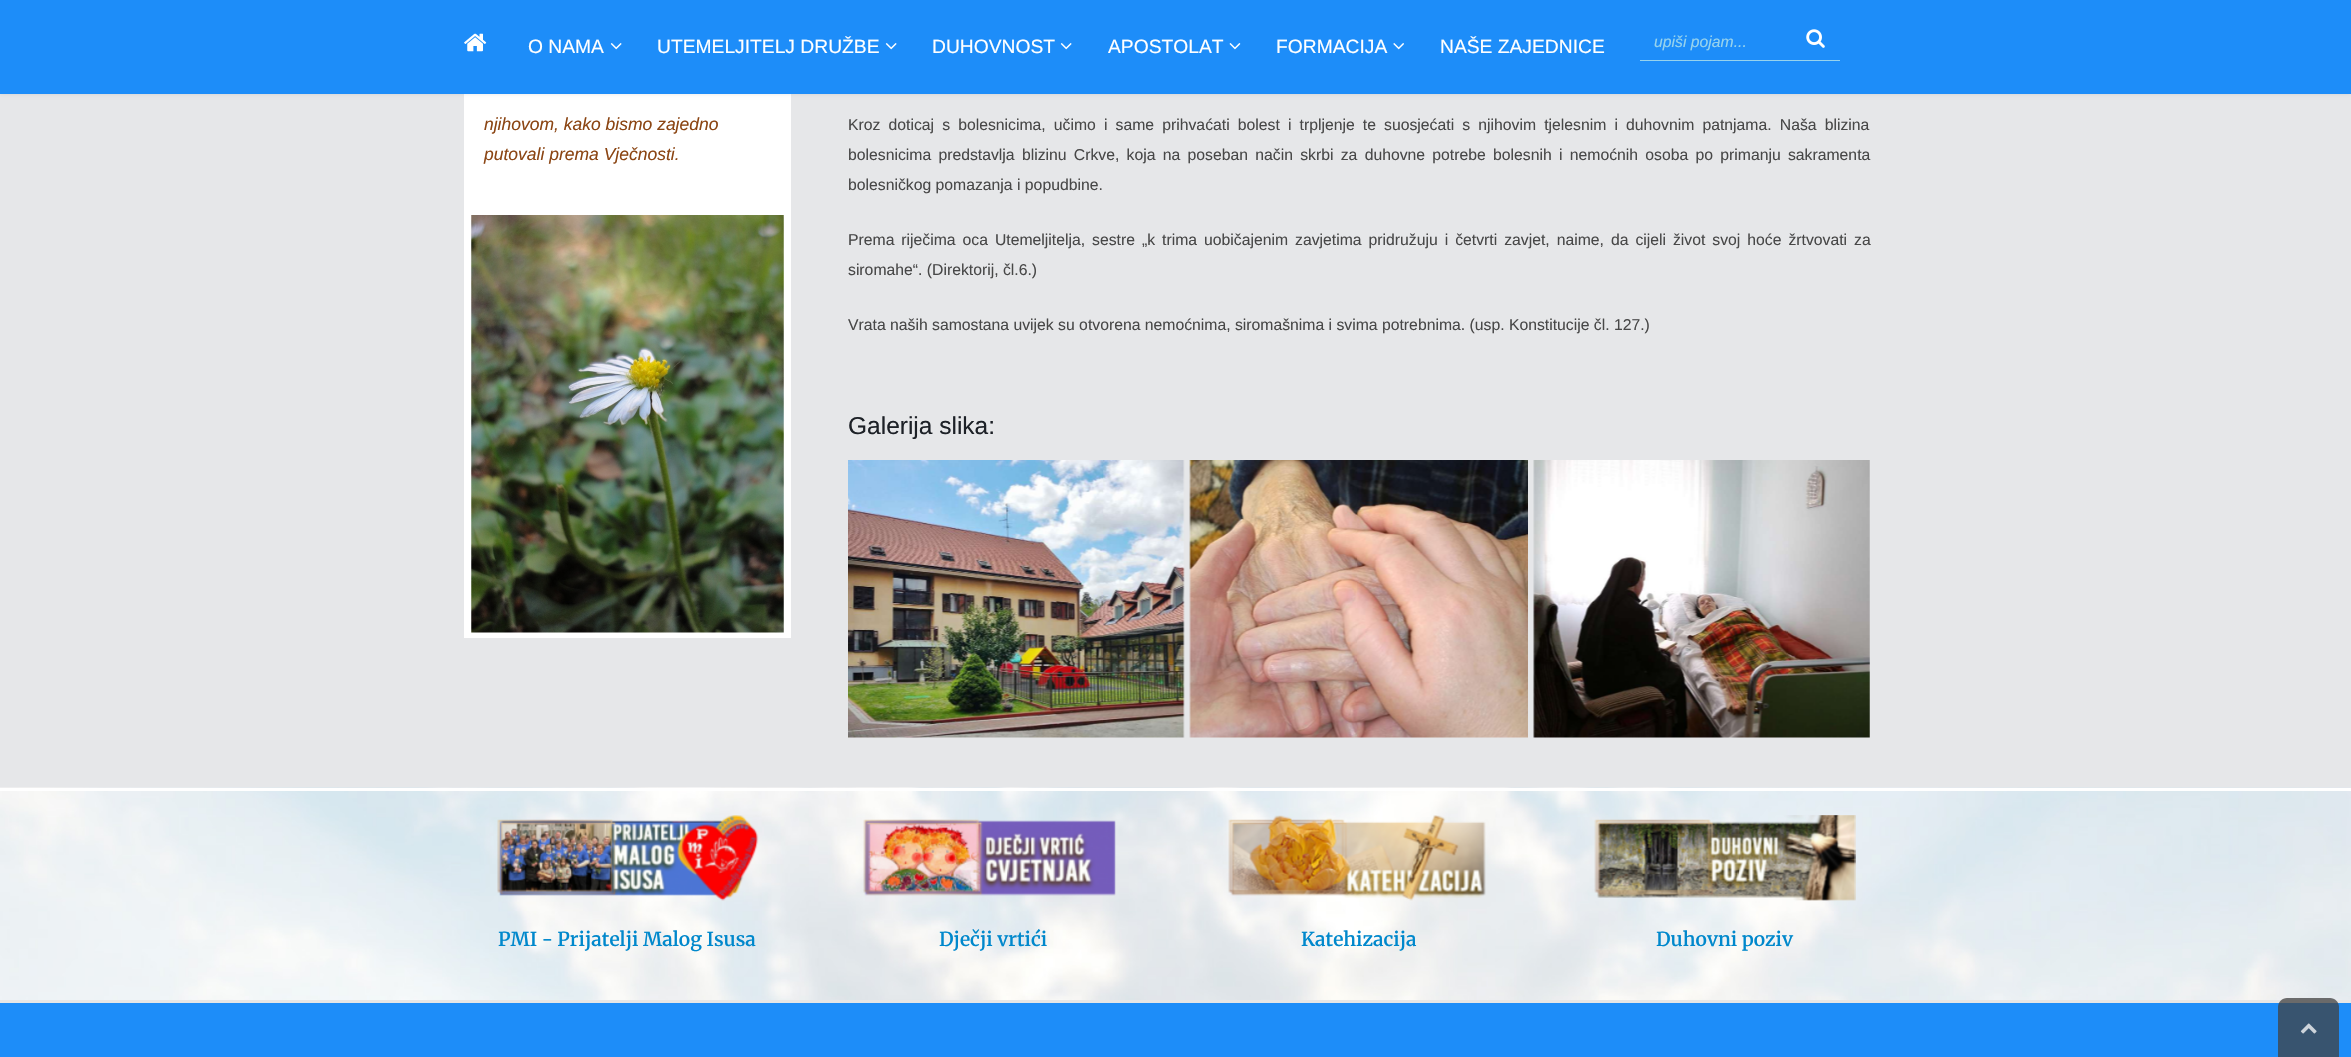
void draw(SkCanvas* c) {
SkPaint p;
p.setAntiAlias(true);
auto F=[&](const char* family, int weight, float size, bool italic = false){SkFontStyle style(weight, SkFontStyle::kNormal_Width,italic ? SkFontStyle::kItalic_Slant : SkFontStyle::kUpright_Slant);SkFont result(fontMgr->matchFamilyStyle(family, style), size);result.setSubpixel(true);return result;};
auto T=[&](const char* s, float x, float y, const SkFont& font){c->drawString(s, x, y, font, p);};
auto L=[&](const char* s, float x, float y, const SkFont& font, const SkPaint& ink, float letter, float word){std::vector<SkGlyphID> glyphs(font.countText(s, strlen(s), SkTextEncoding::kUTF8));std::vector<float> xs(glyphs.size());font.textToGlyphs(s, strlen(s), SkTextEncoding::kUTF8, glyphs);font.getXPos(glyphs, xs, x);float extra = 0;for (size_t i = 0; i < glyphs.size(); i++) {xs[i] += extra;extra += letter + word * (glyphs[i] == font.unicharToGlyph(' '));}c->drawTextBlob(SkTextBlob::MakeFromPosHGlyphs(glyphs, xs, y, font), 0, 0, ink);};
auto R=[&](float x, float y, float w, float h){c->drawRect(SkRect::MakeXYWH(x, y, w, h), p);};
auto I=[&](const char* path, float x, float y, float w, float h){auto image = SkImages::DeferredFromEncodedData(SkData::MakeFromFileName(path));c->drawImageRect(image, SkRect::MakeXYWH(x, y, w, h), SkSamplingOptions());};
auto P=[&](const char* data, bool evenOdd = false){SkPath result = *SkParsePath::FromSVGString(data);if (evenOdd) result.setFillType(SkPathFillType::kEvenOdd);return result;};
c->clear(0xffe6e7e9);
p.setColor(0xffffffff);
R(464,94,327,544);
p.setColor(0x1a000000);
p.setMaskFilter(SkMaskFilter::MakeBlur(kNormal_SkBlurStyle, 2));
c->drawRect(SkRect::MakeXYWH(0,-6,2351,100),p);
p.setMaskFilter(nullptr);
p.setColor(0xff1d8df9);
R(0,0,2351,94);
I("1.png",464,33,23,19);
auto f1 = F("Liberation Sans",400,19.25);
p.setColor(0xffffffff);
T("O NAMA",528,53,f1);
I("2.png",610,43,12,7);
T("UTEMELJITELJ DRUŽBE",657,53,f1);
I("2.png",885,43,12,7);
T("DUHOVNOST",932,53,f1);
I("2.png",1060,43,12,7);
T("APOSTOLAT",1108,53,f1);
I("3.png",1229,43,12,7);
T("FORMACIJA",1276,53,f1);
I("4.png",1393,43,11,7);
T("NAŠE ZAJEDNICE",1440,53,f1);
p.setColor(0xff97d3ed);
R(1640,60,200,1);
auto f2 = F("Liberation Sans",400,15.75,true);
T("upiši pojam...",1654,47,f2);
I("5.png",1806,29,19,19);
auto f3 = F("Liberation Sans",400,17.5,true);
p.setColor(0xff8b4513);
T("njihovom, kako bismo zajedno",484,130,f3);
T("putovali prema Vječnosti.",484,160,f3);
I("6.png",471,215,313,418);
auto f4 = F("Liberation Sans",400,15.75);
p.setColor(0xff484848);
L("Kroz doticaj s bolesnicima, učimo i same prihvaćati bolest i trpljenje te suosjećati s njihovim tjelesnim i duhovnim patnjama. Naša blizina",848,130,f4,p,0,3.75);
L("bolesnicima predstavlja blizinu Crkve, koja na poseban način skrbi za duhovne potrebe bolesnih i nemoćnih osoba po primanju sakramenta",848,160,f4,p,0,2.9);
T("bolesničkog pomazanja i popudbine.",848,190,f4);
L("Prema riječima oca Utemeljitelja, sestre „k trima uobičajenim zavjetima pridružuju i četvrti zavjet, naime, da cijeli život svoj hoće žrtvovati za",848,245,f4,p,0,2.6);
T("siromahe“. (Direktorij, čl.6.)",848,275,f4);
T("Vrata naših samostana uvijek su otvorena nemoćnima, siromašnima i svima potrebnima. (usp. Konstitucije čl. 127.)",848,330,f4);
auto f5 = F("Liberation Sans",400,24.5);
p.setColor(0xff1d2127);
T("Galerija slika:",848,434,f5);
I("7.png",848,460,337,278);
I("8.png",1189,460,339,278);
I("9.png",1533,460,337,278);
I("10.png",0,787,2351,213);
p.setColor(0xffffffff);
R(0,788,2351,3);
p.setColor(0xffe6e6e6);
R(0,1000,2351,3);
I("11.png",497,815,262,86);
auto f6 = F("Merriweather",600,19.25);
p.setColor(0xff0088cc);
T("PMI - Prijatelji Malog Isusa",498,946,f6);
I("12.png",863,819,253,77);
T("Dječji vrtići",939,946,f6);
I("13.png",1228,815,258,86);
T("Katehizacija",1301,946,f6);
I("14.png",1594,815,262,86);
T("Duhovni poziv",1656,946,f6);
p.setColor(0xff1d8df9);
R(0,1003,2351,54);
p.setColor(0xbf404040);
c->drawPath(P("M2287 998h43c5 0 9 4 9 9v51h-61v-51c0-5 4-9 9-9z"),p);
I("15.png",2300,1023,17,11);
}
